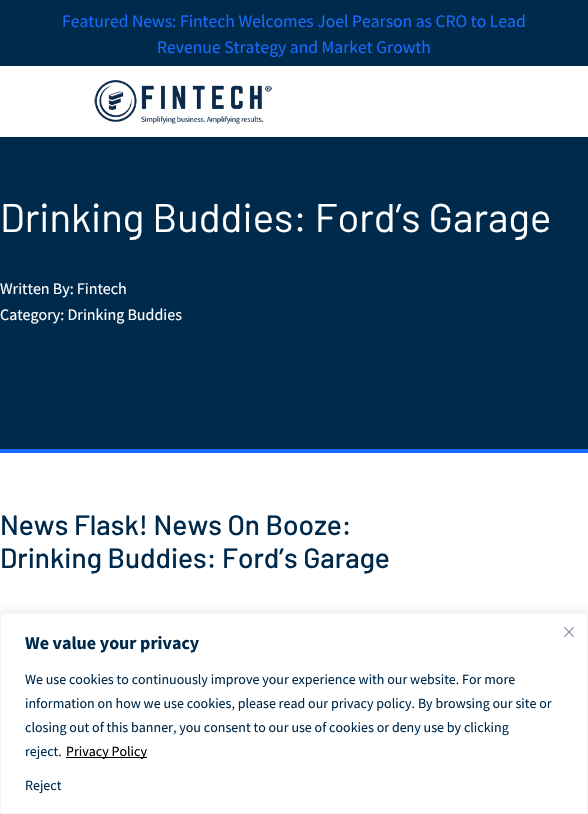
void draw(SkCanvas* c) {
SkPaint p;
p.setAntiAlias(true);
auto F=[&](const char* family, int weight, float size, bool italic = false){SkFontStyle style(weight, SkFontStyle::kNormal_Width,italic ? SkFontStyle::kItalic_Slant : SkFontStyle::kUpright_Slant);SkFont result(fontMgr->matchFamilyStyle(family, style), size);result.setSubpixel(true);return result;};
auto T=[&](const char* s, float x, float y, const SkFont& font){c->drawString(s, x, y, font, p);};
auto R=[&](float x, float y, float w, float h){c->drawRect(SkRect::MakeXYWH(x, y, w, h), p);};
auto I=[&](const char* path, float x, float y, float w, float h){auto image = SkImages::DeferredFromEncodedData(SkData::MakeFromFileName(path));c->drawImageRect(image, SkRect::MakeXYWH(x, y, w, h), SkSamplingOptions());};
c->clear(0xffffffff);
p.setColor(0xff002a4c);
R(0,0,588,66);
auto f1 = F("Source Sans Pro",400,17.6);
p.setColor(0xff176cff);
T("Featured News: Fintech Welcomes Joel Pearson as CRO to Lead",62,27,f1);
T("Revenue Strategy and Market Growth",157,53,f1);
I("1.png",94,80,178,44);
p.setColor(0xff002a4c);
R(0,137,588,312);
p.setColor(0xff176cff);
R(0,449,588,4);
auto f2 = F("Barlow",400,40);
p.setColor(0xffffffff);
T("Drinking Buddies: Ford’s Garage",0,232,f2);
auto f3 = F("Source Sans Pro",400,16);
T("Written By: Fintech",0,294,f3);
T("Category: Drinking Buddies",0,320,f3);
auto f4 = F("Barlow",500,28);
p.setColor(0xff002a4c);
T("News Flask! News On Booze:",0,535,f4);
T("Drinking Buddies: Ford’s Garage",0,568,f4);
p.setColor(0x4dacabab);
p.setMaskFilter(SkMaskFilter::MakeBlur(kNormal_SkBlurStyle, 5));
c->drawRect(SkRect::MakeXYWH(0,612,588,201),p);
p.setMaskFilter(nullptr);
p.setColor(0xffffffff);
c->drawRect(SkRect::MakeXYWH(.5,613.5,587,200),p);
p.setStroke(true);
p.setStrokeWidth(1);
p.setColor(0xfff4f4f4);
c->drawRect(SkRect::MakeXYWH(.5,613.5,587,200),p);
I("2.png",564,627,10,10);
auto f5 = F("Source Sans Pro",700,18);
p.setStroke(false);
p.setColor(0xff002a4c);
T("We value your privacy",25,649,f5);
auto f6 = F("Source Sans Pro",400,14);
T("We use cookies to continuously improve your experience with our website. For more",25,684,f6);
T("information on how we use cookies, please read our privacy policy. By browsing our site or",25,708,f6);
T("closing out of this banner, you consent to our use of cookies or deny use by clicking",25,732,f6);
T("reject.",25,756,f6);
p.setColor(0xff000000);
R(66,757,81,1);
T("Privacy Policy",66,756,f6);
p.setColor(0xff002a4c);
T("Reject",25,790,f6);
}
